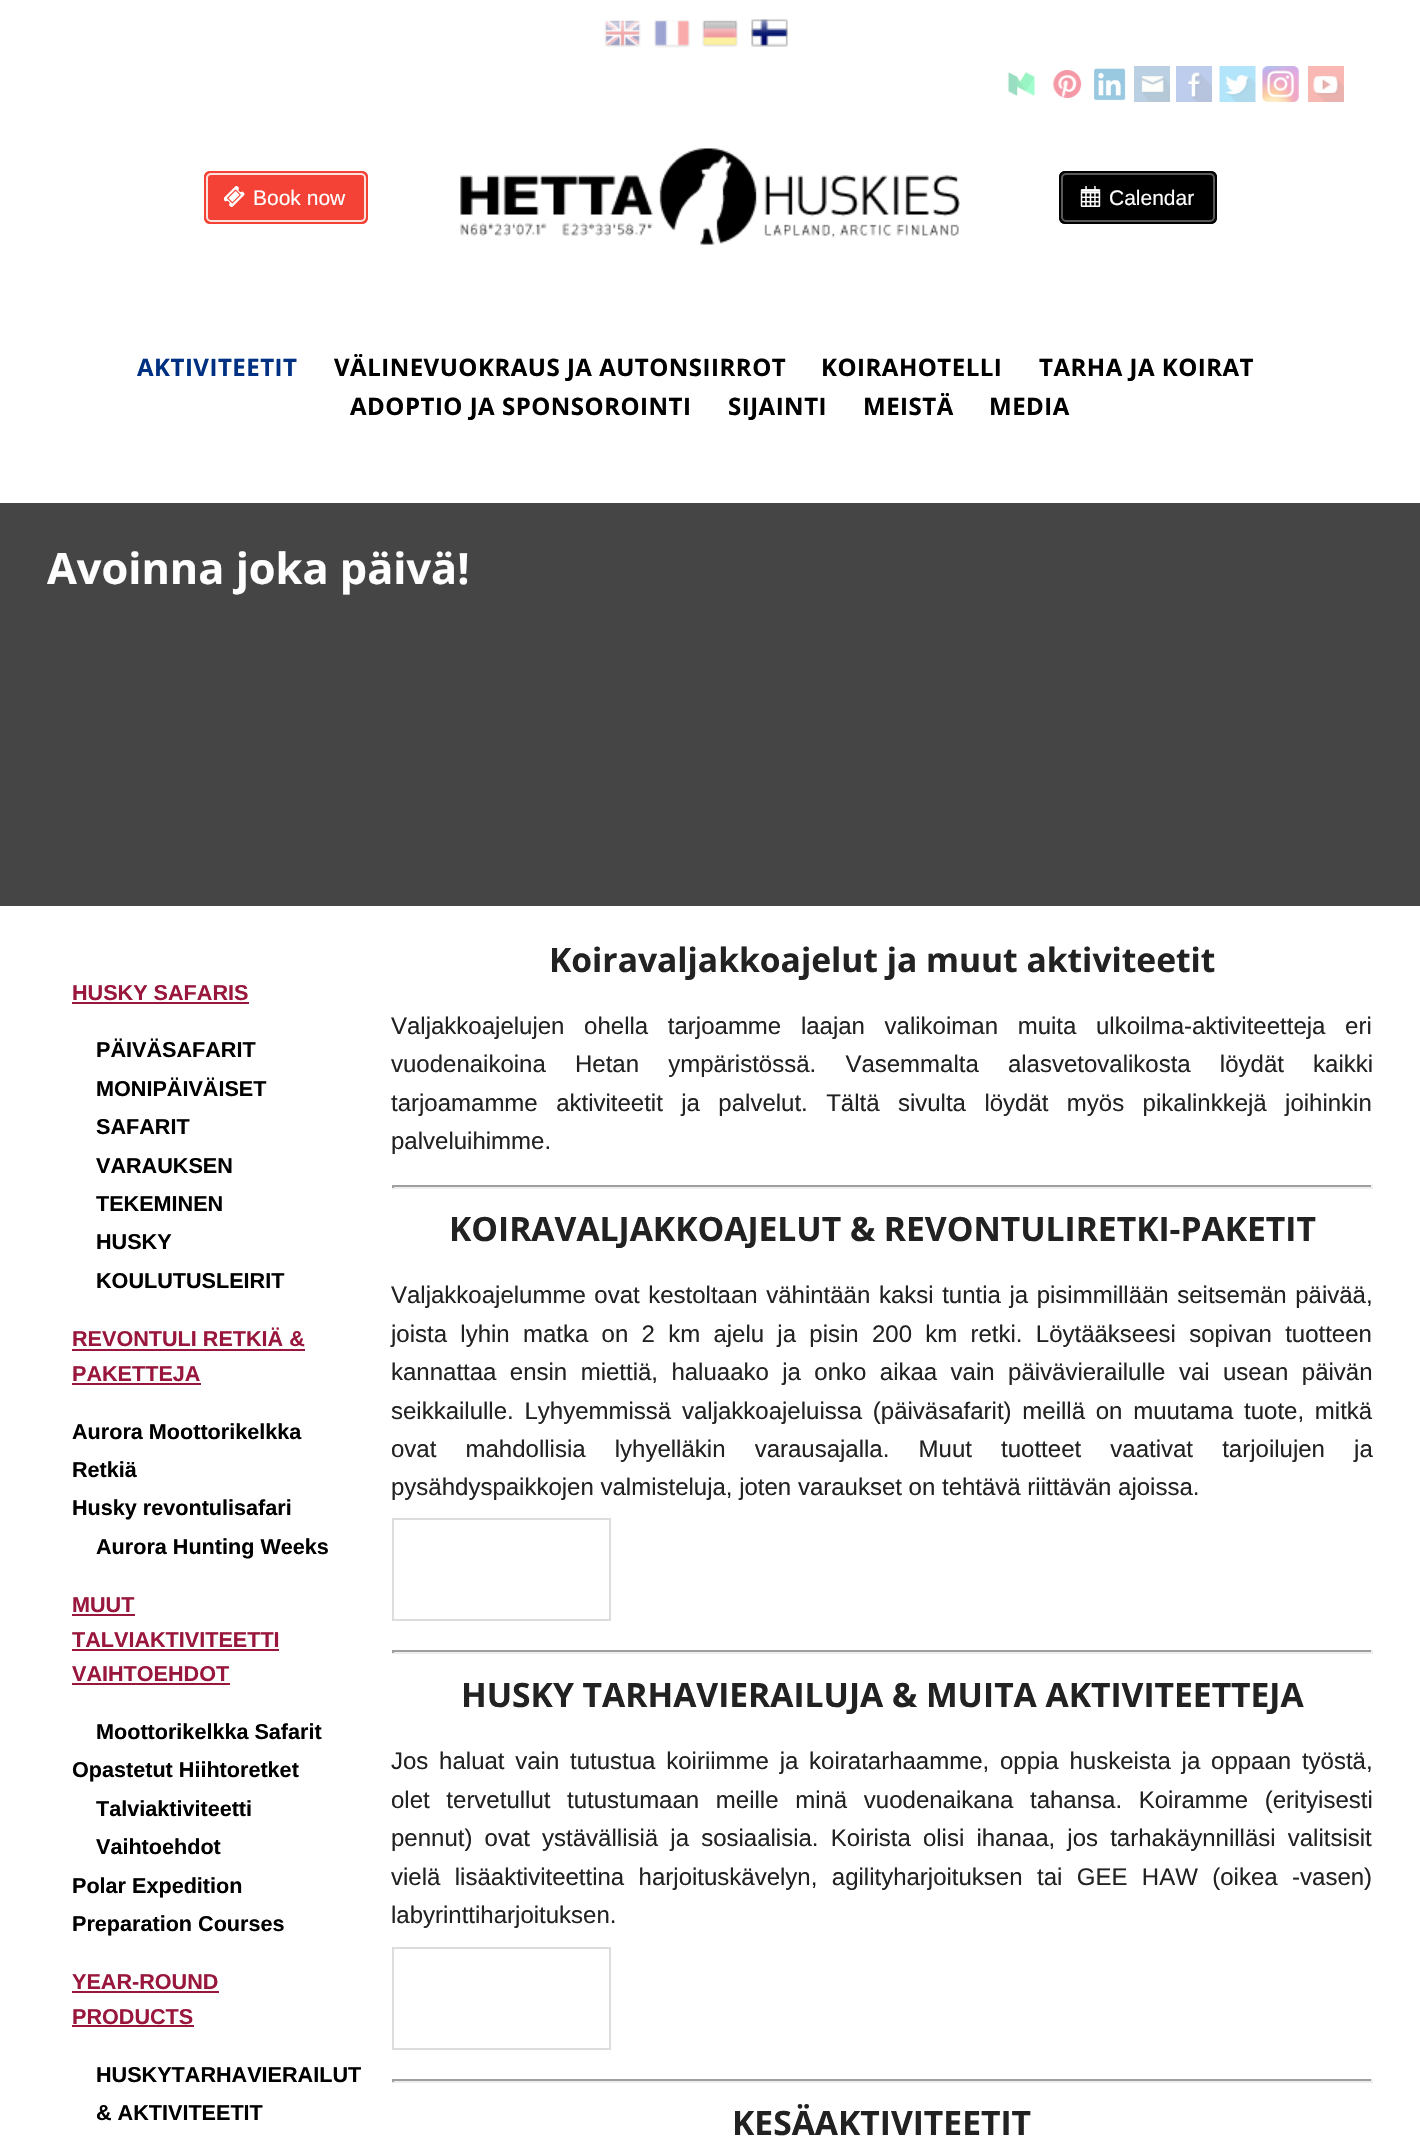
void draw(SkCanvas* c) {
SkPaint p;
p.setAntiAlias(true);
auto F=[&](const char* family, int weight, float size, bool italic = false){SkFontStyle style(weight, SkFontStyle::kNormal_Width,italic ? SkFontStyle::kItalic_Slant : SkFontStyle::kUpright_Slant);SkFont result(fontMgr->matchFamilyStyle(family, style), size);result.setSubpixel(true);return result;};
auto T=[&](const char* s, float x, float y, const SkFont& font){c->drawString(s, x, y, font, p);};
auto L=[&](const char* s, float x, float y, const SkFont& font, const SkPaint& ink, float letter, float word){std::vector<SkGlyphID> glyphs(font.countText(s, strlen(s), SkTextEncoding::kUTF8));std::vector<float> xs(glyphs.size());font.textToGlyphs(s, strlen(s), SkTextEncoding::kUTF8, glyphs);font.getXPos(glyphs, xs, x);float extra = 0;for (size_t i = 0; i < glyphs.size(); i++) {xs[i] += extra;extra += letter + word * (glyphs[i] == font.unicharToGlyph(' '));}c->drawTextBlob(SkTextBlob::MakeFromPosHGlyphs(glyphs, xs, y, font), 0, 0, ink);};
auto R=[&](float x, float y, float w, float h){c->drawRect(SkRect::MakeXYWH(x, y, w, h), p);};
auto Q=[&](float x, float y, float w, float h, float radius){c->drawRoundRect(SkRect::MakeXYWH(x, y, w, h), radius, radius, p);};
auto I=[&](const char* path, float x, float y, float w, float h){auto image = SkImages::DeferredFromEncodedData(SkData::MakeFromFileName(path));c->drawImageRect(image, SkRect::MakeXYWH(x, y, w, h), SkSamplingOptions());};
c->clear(0xffffffff);
I("1.png",604,20,37,27);
I("2.png",654,20,36,28);
I("3.png",702,20,36,27);
I("4.png",751,19,37,28);
I("5.png",1007,72,28,24);
I("6.png",1053,70,29,28);
I("7.png",1094,68,32,33);
I("8.png",1134,66,36,36);
I("9.png",1176,66,36,36);
I("10.png",1219,66,37,36);
I("11.png",1262,66,37,36);
I("12.png",1308,66,36,36);
p.setColor(0xfff44336);
Q(204,171,164,53,6);
p.setStroke(true);
p.setStrokeWidth(2);
p.setColor(0xfffde1df);
c->drawRoundRect(SkRect::MakeXYWH(207,174,158,47),4,4,p);
p.setColor(0xfff44336);
c->drawRoundRect(SkRect::MakeXYWH(205,172,162,51),5,5,p);
I("13.png",224,186,21,21);
auto f1 = F("Liberation Sans",400,21);
p.setStroke(false);
p.setColor(0xffffffff);
T("Book now",253,205,f1);
I("14.png",460,148,500,97);
p.setColor(0xff000000);
Q(1059,171,158,53,6);
p.setStroke(true);
p.setColor(0xff595959);
c->drawRoundRect(SkRect::MakeXYWH(1062,174,152,47),4,4,p);
p.setColor(0xff000000);
c->drawRoundRect(SkRect::MakeXYWH(1060,172,156,51),5,5,p);
I("15.png",1080,186,21,21);
p.setStroke(false);
p.setColor(0xffffffff);
T("Calendar",1109,205,f1);
auto f2 = F("Open Sans",700,24);
p.setColor(0xff003082);
L("AKTIVITEETIT",137,376,f2,p,.5,0);
p.setColor(0xff000000);
L("VÄLINEVUOKRAUS JA AUTONSIIRROT",334,376,f2,p,.5,0);
L("KOIRAHOTELLI",821,376,f2,p,.5,0);
L("TARHA JA KOIRAT",1039,376,f2,p,.5,0);
L("ADOPTIO JA SPONSOROINTI",350,415,f2,p,.5,0);
L("SIJAINTI",728,415,f2,p,.5,0);
L("MEISTÄ",863,415,f2,p,.5,0);
L("MEDIA",989,415,f2,p,.5,0);
p.setColor(0xff454545);
R(0,503,1420,403);
auto f3 = F("Open Sans",700,43.25);
p.setColor(0xffffffff);
T("Avoinna joka päivä!",47,584,f3);
auto f4 = F("Liberation Sans",700,21.6);
p.setColor(0xff99173c);
T("HUSKY SAFARIS",72,1000,f4);
R(72,1002,177,2);
p.setColor(0xff000000);
T("PÄIVÄSAFARIT",96,1057,f4);
T("MONIPÄIVÄISET",96,1096,f4);
T("SAFARIT",96,1134,f4);
T("VARAUKSEN",96,1173,f4);
T("TEKEMINEN",96,1211,f4);
T("HUSKY",96,1249,f4);
T("KOULUTUSLEIRIT",96,1288,f4);
p.setColor(0xff99173c);
T("REVONTULI RETKIÄ &",72,1346,f4);
R(72,1349,233,2);
T("PAKETTEJA",72,1381,f4);
R(72,1383,129,2);
p.setColor(0xff000000);
T("Aurora Moottorikelkka",72,1439,f4);
T("Retkiä",72,1477,f4);
T("Husky revontulisafari",72,1515,f4);
T("Aurora Hunting Weeks",96,1554,f4);
p.setColor(0xff99173c);
T("MUUT",72,1612,f4);
R(72,1614,63,2);
T("TALVIAKTIVITEETTI",72,1647,f4);
R(72,1649,207,2);
T("VAIHTOEHDOT",72,1681,f4);
R(72,1683,158,2);
p.setColor(0xff000000);
T("Moottorikelkka Safarit",96,1739,f4);
T("Opastetut Hiihtoretket",72,1777,f4);
T("Talviaktiviteetti",96,1816,f4);
T("Vaihtoehdot",96,1854,f4);
T("Polar Expedition",72,1893,f4);
T("Preparation Courses",72,1931,f4);
p.setColor(0xff99173c);
T("YEAR-ROUND",72,1989,f4);
R(72,1991,147,2);
T("PRODUCTS",72,2024,f4);
R(72,2025,122,2);
p.setColor(0xff000000);
T("HUSKYTARHAVIERAILUT",96,2082,f4);
T("& AKTIVITEETIT",96,2120,f4);
auto f5 = F("Open Sans",700,33.6);
p.setColor(0xff222222);
T("Koiravaljakkoajelut ja muut aktiviteetit",549,972,f5);
auto f6 = F("Liberation Sans",400,24);
L("Valjakkoajelujen ohella tarjoamme laajan valikoiman muita ulkoilma-aktiviteetteja eri",391,1034,f6,p,0,13);
L("vuodenaikoina Hetan ympäristössä. Vasemmalta alasvetovalikosta löydät kaikki",391,1072,f6,p,0,22.5);
L("tarjoamamme aktiviteetit ja palvelut. Tältä sivulta löydät myös pikalinkkejä joihinkin",391,1111,f6,p,0,11.75);
T("palveluihimme.",391,1149,f6);
p.setColor(0xff9f9f9f);
R(392,1185,981,2);
p.setColor(0xffeeeeee);
R(1371,1185,2,3);
R(392,1187,981,2);
p.setColor(0xff9f9f9f);
R(392,1185,2,3);
p.setColor(0xff222222);
T("KOIRAVALJAKKOAJELUT & REVONTULIRETKI-PAKETIT",449,1241,f5);
L("Valjakkoajelumme ovat kestoltaan vähintään kaksi tuntia ja pisimmillään seitsemän päivää,",391,1303,f6,p,0,1.9);
L("joista lyhin matka on 2 km ajelu ja pisin 200 km retki. Löytääkseesi sopivan tuotteen",391,1342,f6,p,0,6.6);
L("kannattaa ensin miettiä, haluaako ja onko aikaa vain päivävierailulle vai usean päivän",391,1380,f6,p,0,6.75);
L("seikkailulle. Lyhyemmissä valjakkoajeluissa (päiväsafarit) meillä on muutama tuote, mitkä",391,1419,f6,p,0,4.1);
L("ovat mahdollisia lyhyelläkin varausajalla. Muut tuotteet vaativat tarjoilujen ja",391,1457,f6,p,0,22.5);
T("pysähdyspaikkojen valmisteluja, joten varaukset on tehtävä riittävän ajoissa.",391,1495,f6);
p.setColor(0xffdddddd);
R(392,1518,219,2);
R(609,1518,2,102);
R(392,1619,219,2);
R(392,1518,2,102);
p.setColor(0xff9f9f9f);
R(392,1650,981,2);
p.setColor(0xffeeeeee);
R(1371,1650,2,3);
R(392,1652,981,2);
p.setColor(0xff9f9f9f);
R(392,1650,2,3);
p.setColor(0xff222222);
T("HUSKY TARHAVIERAILUJA & MUITA AKTIVITEETTEJA",461,1707,f5);
L("Jos haluat vain tutustua koiriimme ja koiratarhaamme, oppia huskeista ja oppaan työstä,",391,1769,f6,p,0,4.1);
L("olet tervetullut tutustumaan meille minä vuodenaikana tahansa. Koiramme (erityisesti",391,1808,f6,p,0,10);
L("pennut) ovat ystävällisiä ja sosiaalisia. Koirista olisi ihanaa, jos tarhakäynnilläsi valitsisit",391,1846,f6,p,0,5.5);
L("vielä lisäaktiviteettina harjoituskävelyn, agilityharjoituksen tai GEE HAW (oikea -vasen)",391,1885,f6,p,0,7.75);
T("labyrinttiharjoituksen.",391,1923,f6);
p.setColor(0xffdddddd);
R(392,1947,219,2);
R(609,1947,2,102);
R(392,2048,219,2);
R(392,1947,2,102);
p.setColor(0xff9f9f9f);
R(392,2079,981,2);
p.setColor(0xffeeeeee);
R(1371,2079,2,3);
R(392,2081,981,2);
p.setColor(0xff9f9f9f);
R(392,2079,2,3);
p.setColor(0xff222222);
T("KESÄAKTIVITEETIT",732,2135,f5);
}
